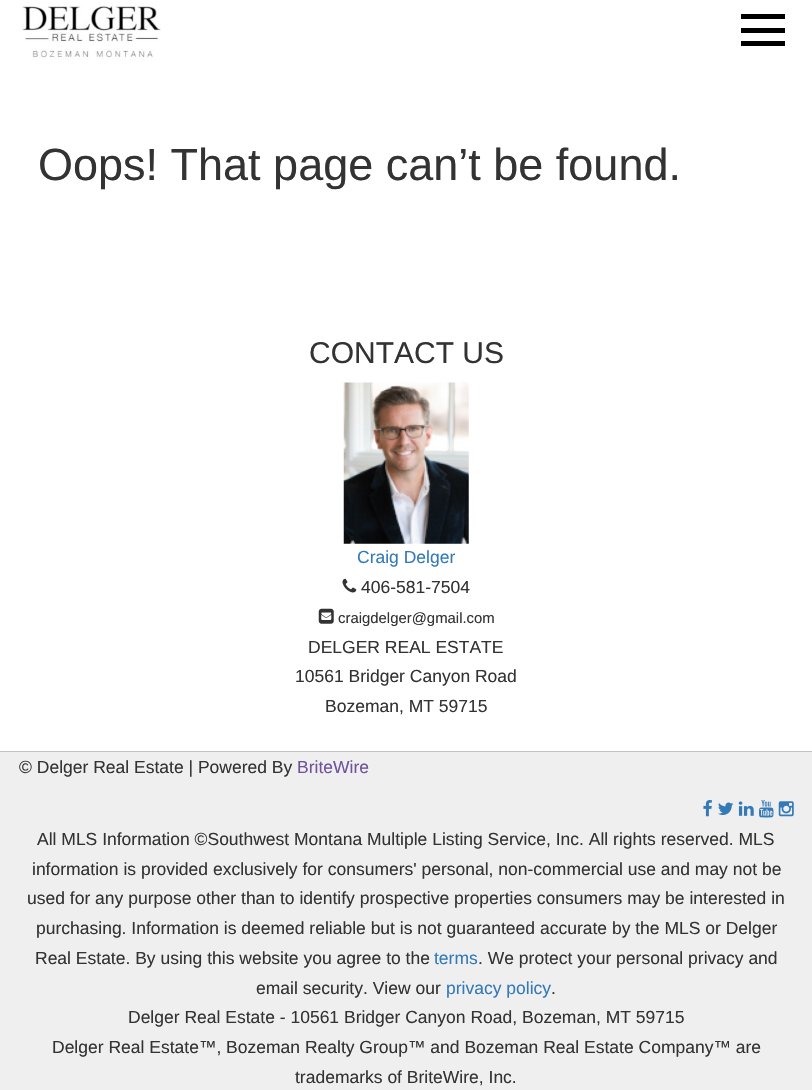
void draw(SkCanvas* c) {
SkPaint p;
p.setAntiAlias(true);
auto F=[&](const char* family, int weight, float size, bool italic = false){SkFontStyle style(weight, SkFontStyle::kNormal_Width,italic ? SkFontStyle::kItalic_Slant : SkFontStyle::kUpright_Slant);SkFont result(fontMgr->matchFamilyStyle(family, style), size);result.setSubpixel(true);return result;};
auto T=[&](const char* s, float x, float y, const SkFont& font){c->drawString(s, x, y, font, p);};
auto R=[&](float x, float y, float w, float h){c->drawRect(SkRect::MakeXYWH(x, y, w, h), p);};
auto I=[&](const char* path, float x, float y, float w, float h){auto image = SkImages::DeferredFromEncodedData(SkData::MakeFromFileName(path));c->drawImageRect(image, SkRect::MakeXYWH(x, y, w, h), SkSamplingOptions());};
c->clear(0xffffffff);
I("1.png",22,2,139,58);
p.setColor(0xff000000);
R(741,14,44,5);
R(741,28,44,5);
R(741,41,44,5);
auto f1 = F("Liberation Sans",400,45);
p.setColor(0xff333333);
T("Oops! That page can’t be found.",38,180,f1);
auto f2 = F("Liberation Sans",400,30);
T("CONTACT US",309,363,f2);
I("2.png",343,382,126,162);
auto f3 = F("Liberation Sans",400,17.5);
p.setColor(0xff337ab7);
T("Craig Delger",357,563,f3);
I("3.png",342,578,15,15);
p.setColor(0xff333333);
T("406-581-7504",361,593,f3);
I("4.png",318,608,16,16);
auto f4 = F("Liberation Sans",400,14.9);
T("craigdelger@gmail.com",338,623,f4);
T("DELGER REAL ESTATE",308,653,f3);
T("10561 Bridger Canyon Road",295,682,f3);
T("Bozeman, MT 59715",325,712,f3);
p.setColor(0xffefefef);
R(0,752,812,338);
p.setColor(0xffc0c2c7);
R(0,751,812,1);
p.setColor(0xff333333);
T("© Delger Real Estate | Powered By",19,773,f3);
p.setColor(0xff6f5499);
T("BriteWire",297,773,f3);
I("5.png",703,800,9,17);
I("6.png",718,802,16,13);
I("7.png",738,801,16,15);
I("8.png",759,800,15,18);
I("9.png",778,801,16,16);
p.setColor(0xff333333);
T("All MLS Information ©Southwest Montana Multiple Listing Service, Inc. All rights reserved. MLS",37,845,f3);
T("information is provided exclusively for consumers' personal, non-commercial use and may not be",32,875,f3);
T("used for any purpose other than to identify prospective properties consumers may be interested in",27,904,f3);
T("purchasing. Information is deemed reliable but is not guaranteed accurate by the MLS or Delger",36,934,f3);
T("Real Estate. By using this website you agree to the",35,964,f3);
p.setColor(0xff337ab7);
T("terms",434,964,f3);
p.setColor(0xff333333);
T(". We protect your personal privacy and",478,964,f3);
T("email security. View our",256,994,f3);
p.setColor(0xff337ab7);
T("privacy policy",446,994,f3);
p.setColor(0xff333333);
T(".",551,994,f3);
T("Delger Real Estate - 10561 Bridger Canyon Road, Bozeman, MT 59715",128,1023,f3);
T("Delger Real Estate™, Bozeman Realty Group™ and Bozeman Real Estate Company™ are",52,1053,f3);
T("trademarks of BriteWire, Inc.",295,1083,f3);
}
